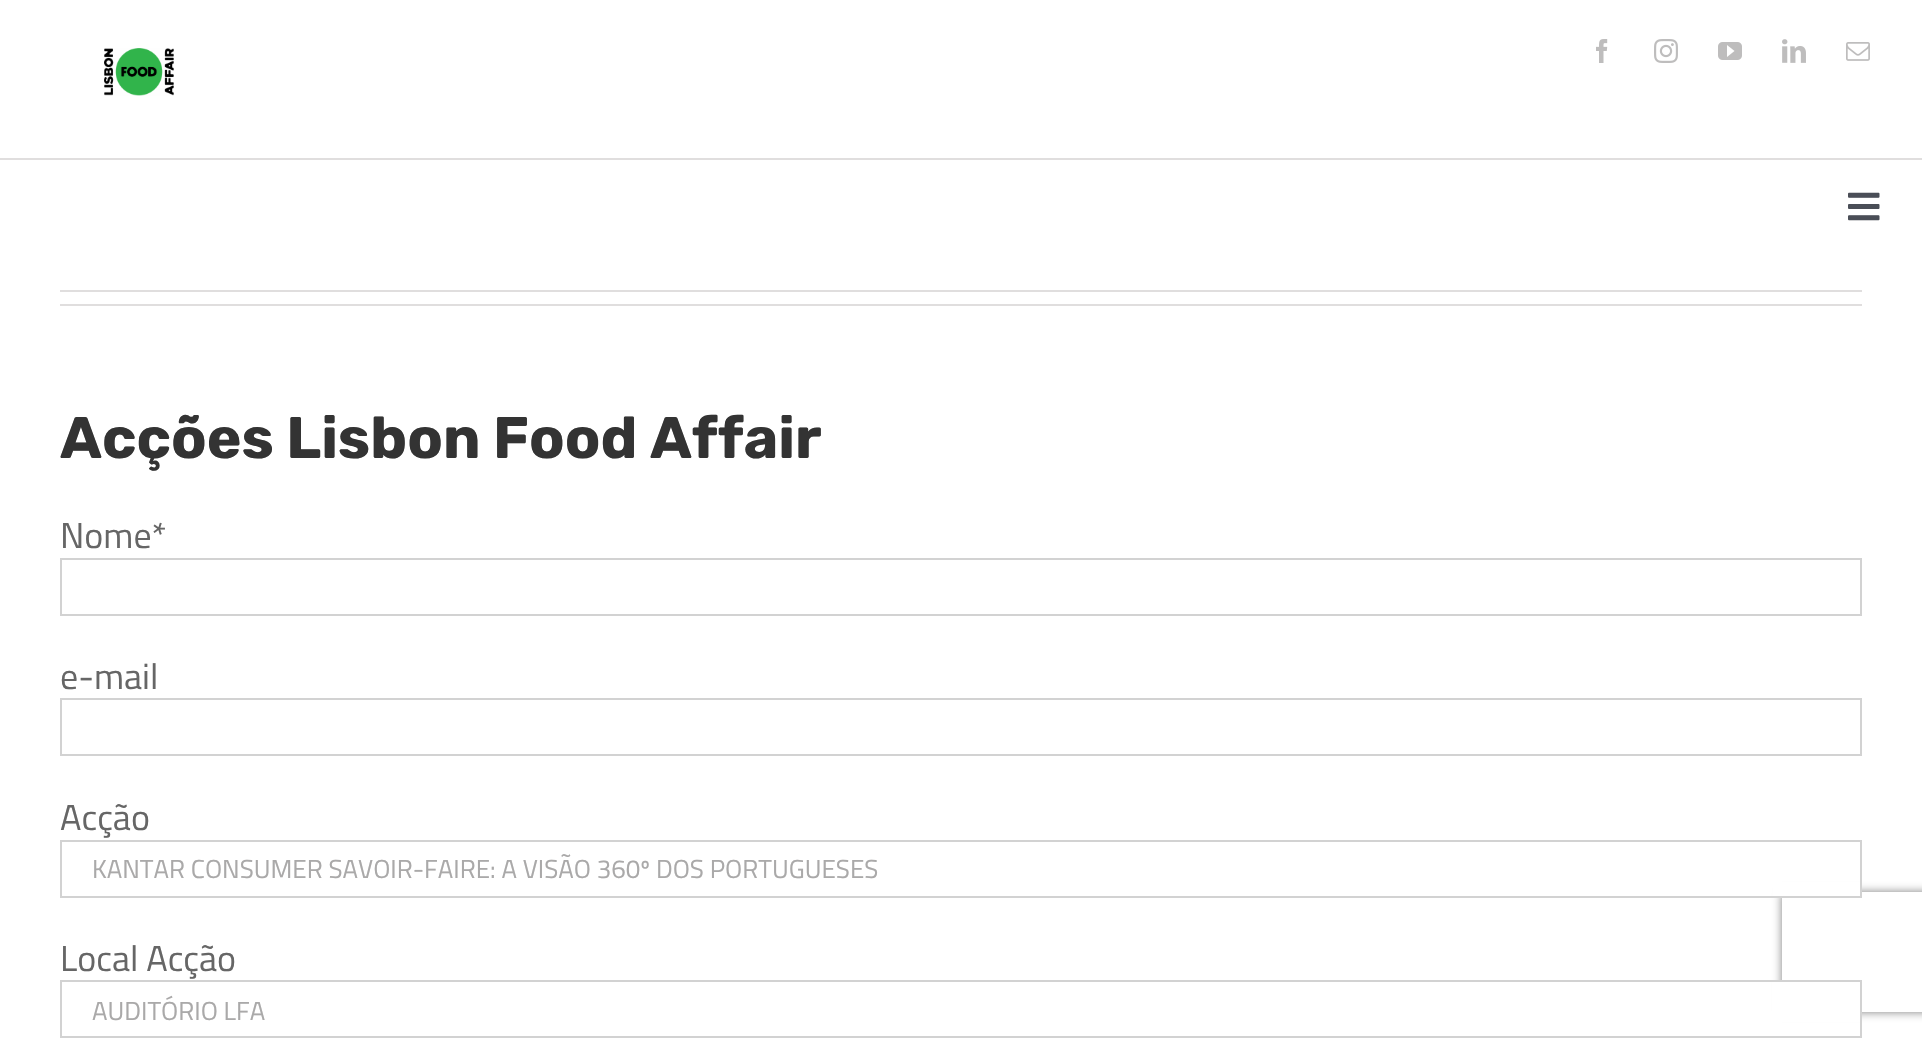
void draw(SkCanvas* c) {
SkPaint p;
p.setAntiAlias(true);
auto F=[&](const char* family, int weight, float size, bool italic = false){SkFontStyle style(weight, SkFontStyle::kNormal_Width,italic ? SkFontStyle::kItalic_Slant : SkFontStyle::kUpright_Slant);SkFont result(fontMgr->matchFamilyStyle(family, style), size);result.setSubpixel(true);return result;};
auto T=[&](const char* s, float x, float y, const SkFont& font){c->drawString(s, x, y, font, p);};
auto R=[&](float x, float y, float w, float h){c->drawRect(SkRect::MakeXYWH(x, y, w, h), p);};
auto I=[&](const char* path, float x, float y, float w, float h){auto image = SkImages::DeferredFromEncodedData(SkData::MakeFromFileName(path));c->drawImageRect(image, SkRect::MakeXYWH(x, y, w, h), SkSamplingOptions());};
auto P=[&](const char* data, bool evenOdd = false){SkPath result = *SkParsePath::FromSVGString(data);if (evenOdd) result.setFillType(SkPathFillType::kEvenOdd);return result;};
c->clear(0xffffffff);
I("1.png",104,48,70,48);
I("2.png",1596,39,12,24);
I("3.png",1654,39,24,24);
I("4.png",1718,42,24,18);
I("5.png",1782,39,24,24);
I("6.png",1846,42,24,19);
p.setColor(0xffe0dede);
R(0,158,1922,2);
I("7.png",1848,192,32,29);
R(60,290,1802,2);
R(60,304,1802,2);
auto f1 = F("Rubik",700,58.5);
p.setColor(0xff333333);
T("Acções Lisbon Food Affair",60,458,f1);
auto f2 = F("Titillium Web",400,36);
p.setColor(0xff666666);
T("Nome*",60,548,f2);
p.setStroke(true);
p.setStrokeWidth(2);
p.setColor(0xffd2d2d2);
c->drawRect(SkRect::MakeXYWH(61,559,1800,56),p);
p.setStroke(false);
p.setColor(0xff666666);
T("e-mail",60,689,f2);
p.setStroke(true);
p.setColor(0xffd2d2d2);
c->drawRect(SkRect::MakeXYWH(61,699,1800,56),p);
p.setStroke(false);
p.setColor(0xff666666);
T("Acção",60,830,f2);
c->save();
c->clipPath(P("M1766 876h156v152h-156zm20 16h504c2 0 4 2 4 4v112c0 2-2 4-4 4h-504c-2 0-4-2-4-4v-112c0-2 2-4 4-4z",true),true);
p.setColor(0xff808080);
p.setMaskFilter(SkMaskFilter::MakeBlur(kNormal_SkBlurStyle, 5));
c->drawRoundRect(SkRect::MakeXYWH(1782,892,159,120),4,4,p);
p.setMaskFilter(nullptr);
c->restore();
p.setColor(0xffffffff);
R(1773,882,87,14);
p.setStroke(true);
p.setColor(0xffd2d2d2);
c->drawRect(SkRect::MakeXYWH(61,841,1800,56),p);
auto f3 = F("Titillium Web",400,26);
p.setStroke(false);
p.setColor(0xffaaa9a9);
T("KANTAR CONSUMER SAVOIR-FAIRE: A VISÃO 360º DOS PORTUGUESES",92,878,f3);
p.setColor(0xff666666);
T("Local Acção",60,971,f2);
p.setColor(0xffffffff);
R(1772,982,88,40);
p.setStroke(true);
p.setColor(0xffd2d2d2);
c->drawRect(SkRect::MakeXYWH(61,981,1800,56),p);
p.setStroke(false);
p.setColor(0xffaaa9a9);
T("AUDITÓRIO LFA",92,1020,f3);
}
